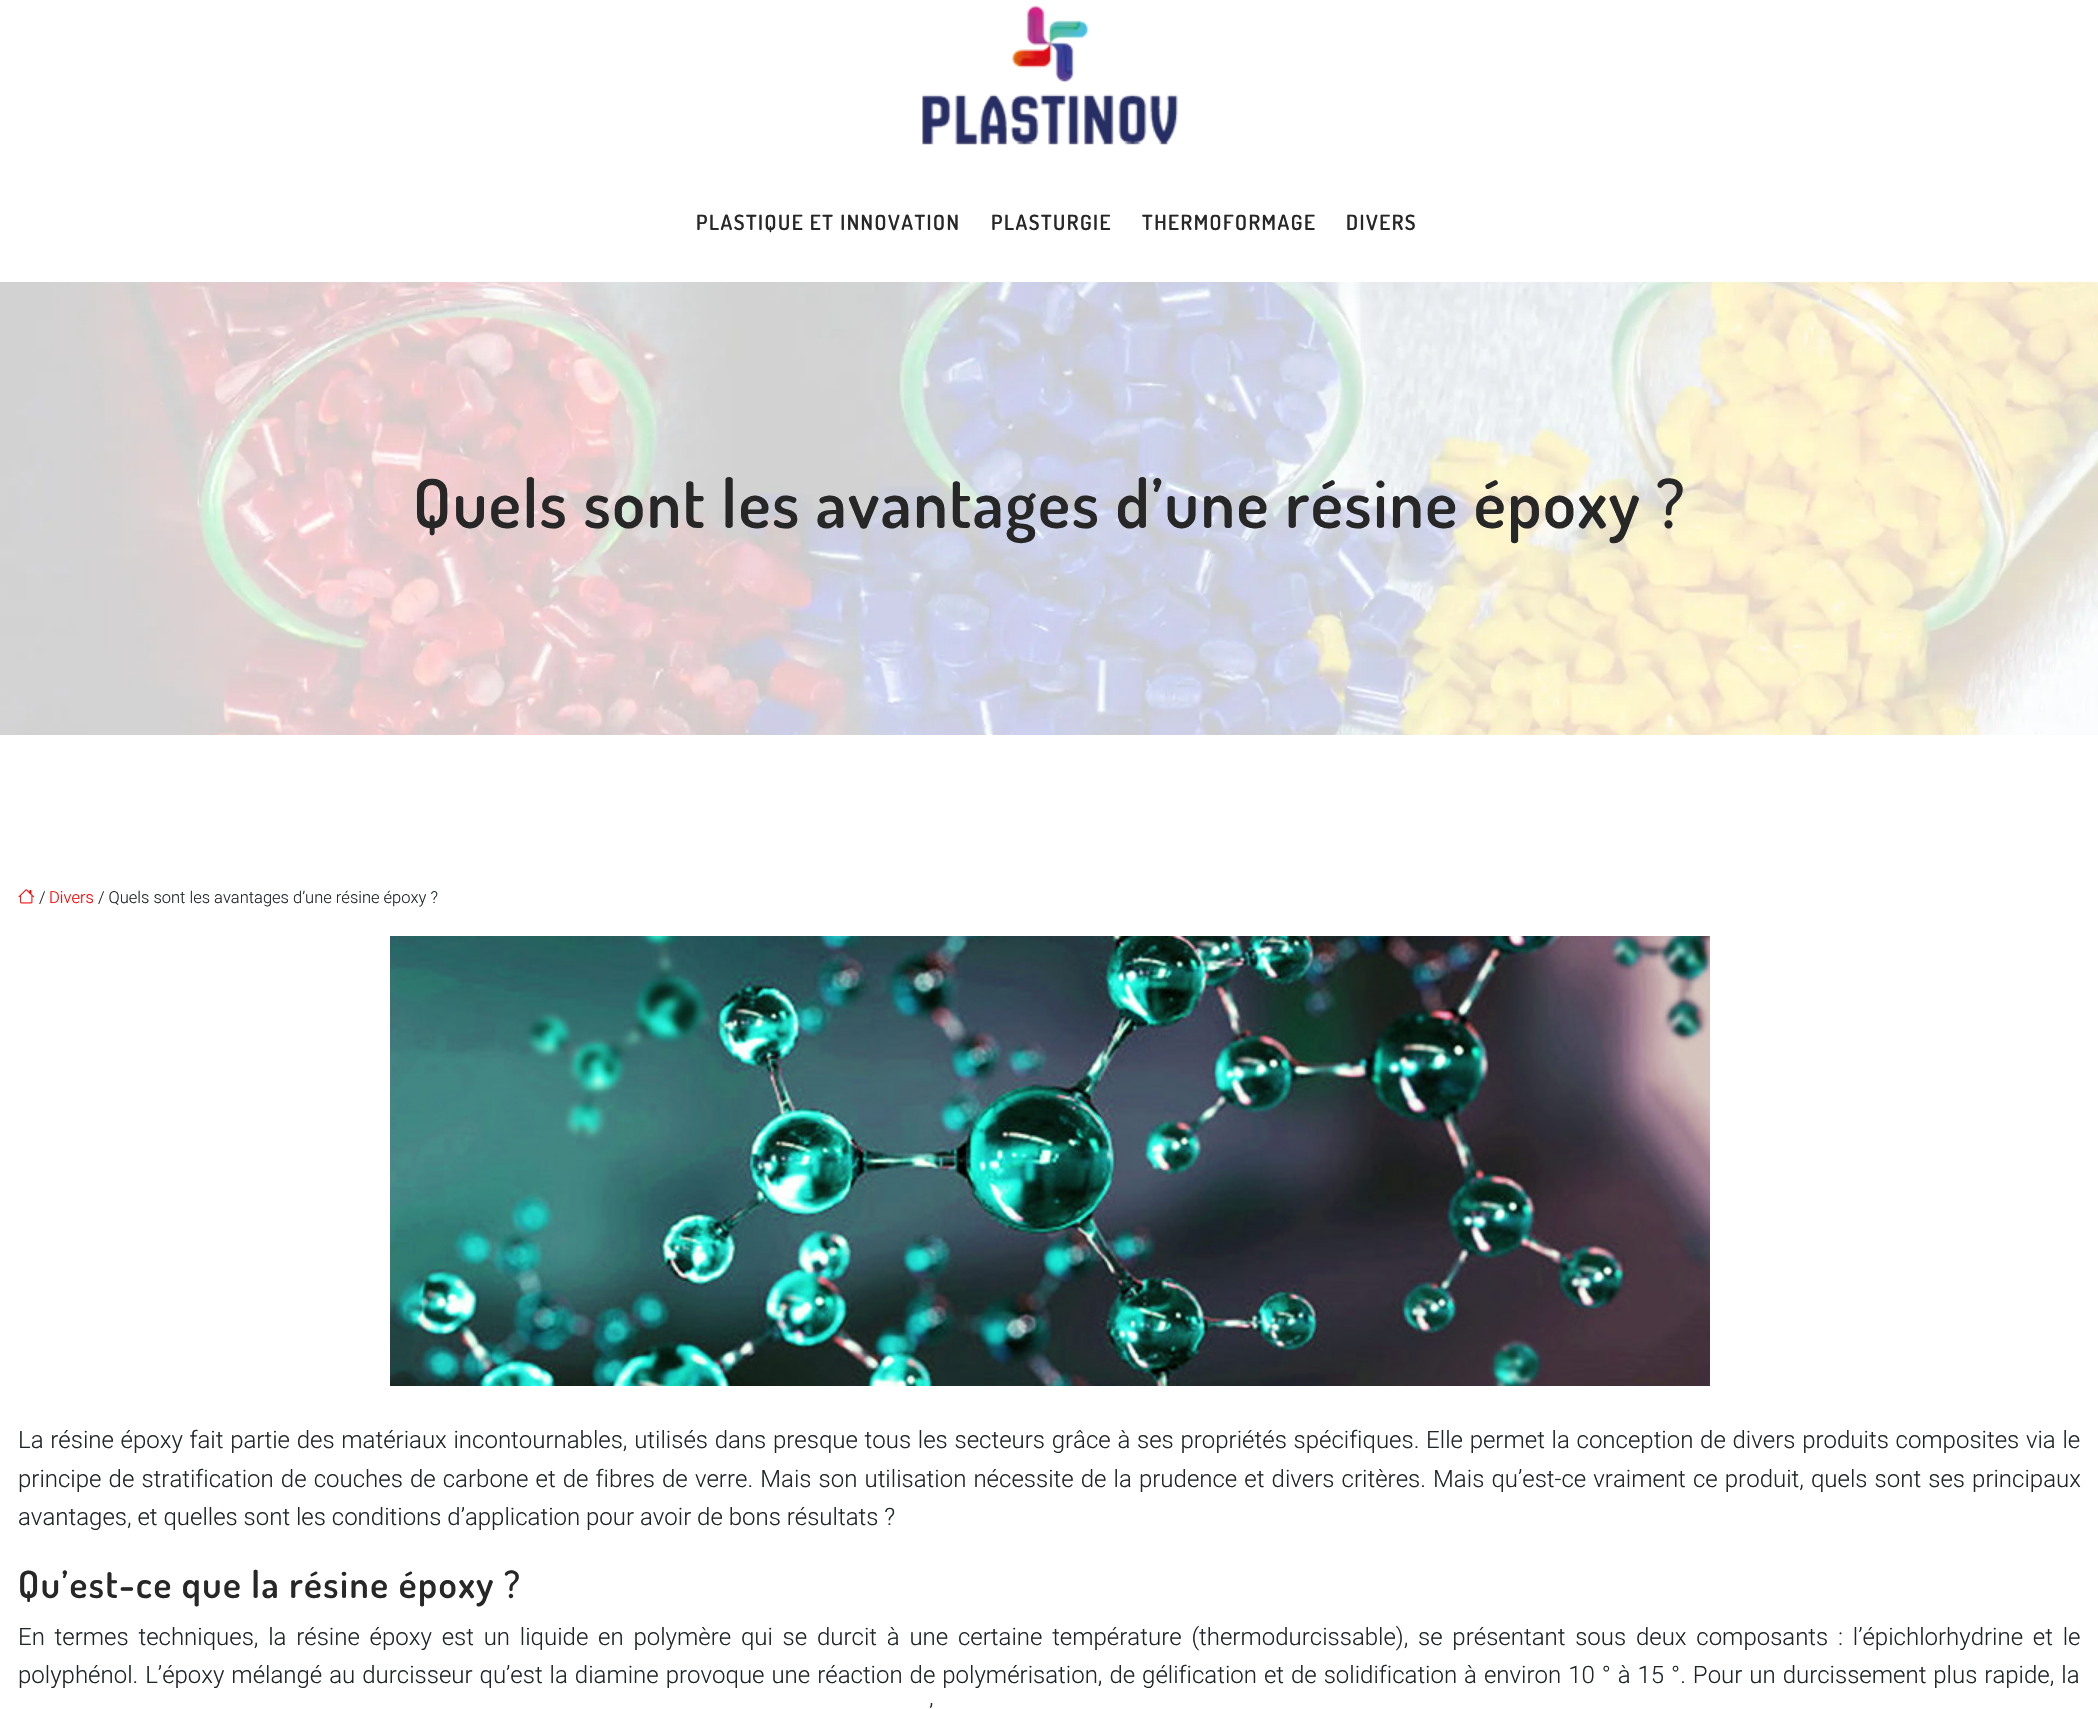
void draw(SkCanvas* c) {
SkPaint p;
p.setAntiAlias(true);
auto F=[&](const char* family, int weight, float size, bool italic = false){SkFontStyle style(weight, SkFontStyle::kNormal_Width,italic ? SkFontStyle::kItalic_Slant : SkFontStyle::kUpright_Slant);SkFont result(fontMgr->matchFamilyStyle(family, style), size);result.setSubpixel(true);return result;};
auto T=[&](const char* s, float x, float y, const SkFont& font){c->drawString(s, x, y, font, p);};
auto L=[&](const char* s, float x, float y, const SkFont& font, const SkPaint& ink, float letter, float word){std::vector<SkGlyphID> glyphs(font.countText(s, strlen(s), SkTextEncoding::kUTF8));std::vector<float> xs(glyphs.size());font.textToGlyphs(s, strlen(s), SkTextEncoding::kUTF8, glyphs);font.getXPos(glyphs, xs, x);float extra = 0;for (size_t i = 0; i < glyphs.size(); i++) {xs[i] += extra;extra += letter + word * (glyphs[i] == font.unicharToGlyph(' '));}c->drawTextBlob(SkTextBlob::MakeFromPosHGlyphs(glyphs, xs, y, font), 0, 0, ink);};
auto I=[&](const char* path, float x, float y, float w, float h){auto image = SkImages::DeferredFromEncodedData(SkData::MakeFromFileName(path));c->drawImageRect(image, SkRect::MakeXYWH(x, y, w, h), SkSamplingOptions());};
c->clear(0xffffffff);
I("1.png",922,5,256,140);
auto f1 = F("Dosis",600,21);
p.setColor(0xff272727);
L("PLASTIQUE ET INNOVATION",696,230,f1,p,1.5,0);
L("PLASTURGIE",991,230,f1,p,1.5,0);
L("THERMOFORMAGE",1142,230,f1,p,1.5,0);
L("DIVERS",1346,230,f1,p,1.5,0);
I("2.png",0,282,2098,453);
auto f2 = F("Dosis",600,67.5);
L("Quels sont les avantages d’une résine époxy ?",413,528,f2,p,1.5,0);
I("3.png",18,889,16,15);
auto f3 = F("Roboto",300,16.5);
p.setColor(0xff212529);
T("/",39,903,f3);
p.setColor(0xffff0000);
T("Divers",49,903,f3);
p.setColor(0xff212529);
T("/ Quels sont les avantages d’une résine époxy ?",98,903,f3);
I("4.png",390,936,1320,450);
auto f4 = F("Roboto",300,24);
L("La résine époxy fait partie des matériaux incontournables, utilisés dans presque tous les secteurs grâce à ses propriétés spécifiques. Elle permet la conception de divers produits composites via le",18,1448,f4,p,0,.85);
L("principe de stratification de couches de carbone et de fibres de verre. Mais son utilisation nécessite de la prudence et divers critères. Mais qu’est-ce vraiment ce produit, quels sont ses principaux",18,1487,f4,p,0,1.25);
T("avantages, et quelles sont les conditions d’application pour avoir de bons résultats ?",18,1525,f4);
auto f5 = F("Dosis",600,37.5);
p.setColor(0xff272727);
L("Qu’est-ce que la résine époxy ?",18,1598,f5,p,1.5,0);
p.setColor(0xff212529);
L("En termes techniques, la résine époxy est un liquide en polymère qui se durcit à une certaine température (thermodurcissable), se présentant sous deux composants : l’épichlorhydrine et le",18,1645,f4,p,0,3.9);
L("polyphénol. L’époxy mélangé au durcisseur qu’est la diamine provoque une réaction de polymérisation, de gélification et de solidification à environ 10 ° à 15 °. Pour un durcissement plus rapide, la",18,1683,f4,p,0,1.1);
T("’",929,1721,f4);
}
